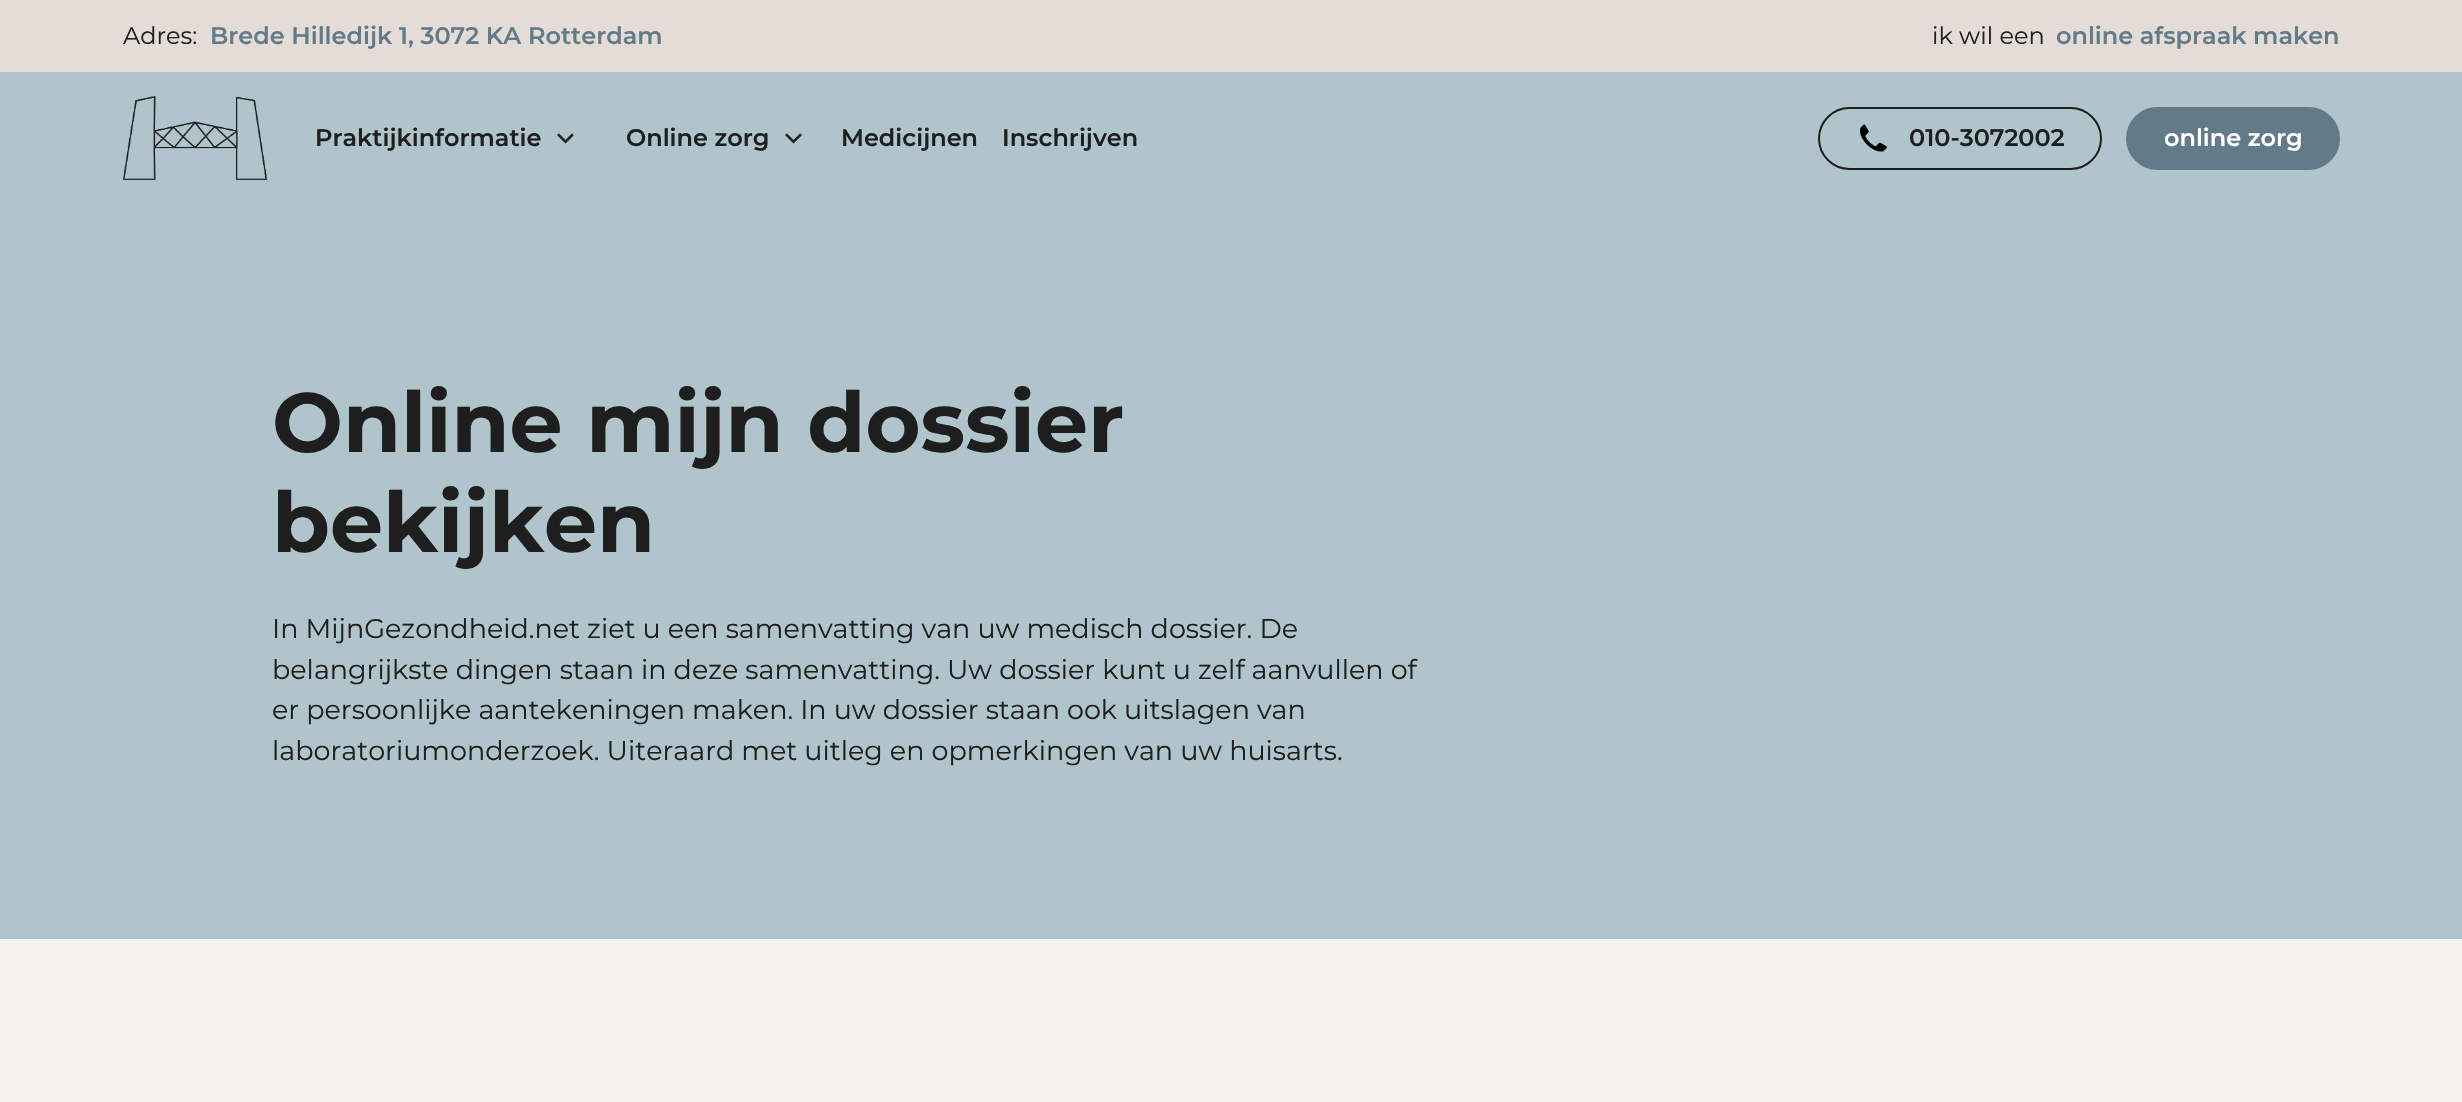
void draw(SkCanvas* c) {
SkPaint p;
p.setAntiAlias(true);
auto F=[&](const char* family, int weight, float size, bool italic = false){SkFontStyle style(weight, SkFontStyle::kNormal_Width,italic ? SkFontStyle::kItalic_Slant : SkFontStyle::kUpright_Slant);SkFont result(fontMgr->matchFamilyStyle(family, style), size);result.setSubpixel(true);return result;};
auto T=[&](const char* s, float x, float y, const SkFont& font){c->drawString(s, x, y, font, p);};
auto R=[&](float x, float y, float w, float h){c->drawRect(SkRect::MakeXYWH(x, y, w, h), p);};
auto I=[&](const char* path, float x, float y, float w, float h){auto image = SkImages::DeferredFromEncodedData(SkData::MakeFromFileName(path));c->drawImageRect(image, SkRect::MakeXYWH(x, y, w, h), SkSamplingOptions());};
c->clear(0xfff6f3ee);
p.setColor(0xffe4ddd7);
R(0,0,2462,72);
auto f1 = F("Montserrat",400,24);
p.setColor(0xff1e1e1e);
T("Adres:",123,44,f1);
auto f2 = F("Montserrat",600,24);
p.setColor(0xff637a88);
T("Brede Hilledijk 1, 3072 KA Rotterdam",210,44,f2);
p.setColor(0xff1e1e1e);
T("ik wil een",1932,44,f1);
p.setColor(0xff637a88);
T("online afspraak maken",2056,44,f2);
p.setColor(0xffb0c5cb);
R(0,72,2462,867);
I("1.png",123,96,145,85);
p.setColor(0xff1e1e1e);
T("Praktijkinformatie",315,146,f2);
I("2.png",557,133,17,11);
T("Online zorg",626,146,f2);
I("2.png",785,133,17,11);
T("Medicijnen",841,146,f2);
T("Inschrijven",1002,146,f2);
p.setStroke(true);
p.setStrokeWidth(2);
c->drawRoundRect(SkRect::MakeXYWH(1819,108,282,61),30.5,30.5,p);
I("3.png",1860,124,27,28);
p.setStroke(false);
T("010-3072002",1909,146,f2);
p.setColor(0xff637a88);
c->drawRoundRect(SkRect::MakeXYWH(2127,108,212,61),30.5,30.5,p);
p.setStroke(true);
c->drawRoundRect(SkRect::MakeXYWH(2127,108,212,61),30.5,30.5,p);
p.setStroke(false);
p.setColor(0xffffffff);
T("online zorg",2164,146,f2);
auto f3 = F("Montserrat",700,84);
p.setColor(0xff1e1e1e);
T("Online mijn dossier",272,452,f3);
T("bekijken",272,552,f3);
auto f4 = F("Montserrat",400,27);
T("In MijnGezondheid.net ziet u een samenvatting van uw medisch dossier. De",272,638,f4);
T("belangrijkste dingen staan in deze samenvatting. Uw dossier kunt u zelf aanvullen of",272,679,f4);
T("er persoonlijke aantekeningen maken. In uw dossier staan ook uitslagen van",272,719,f4);
T("laboratoriumonderzoek. Uiteraard met uitleg en opmerkingen van uw huisarts.",272,760,f4);
}
